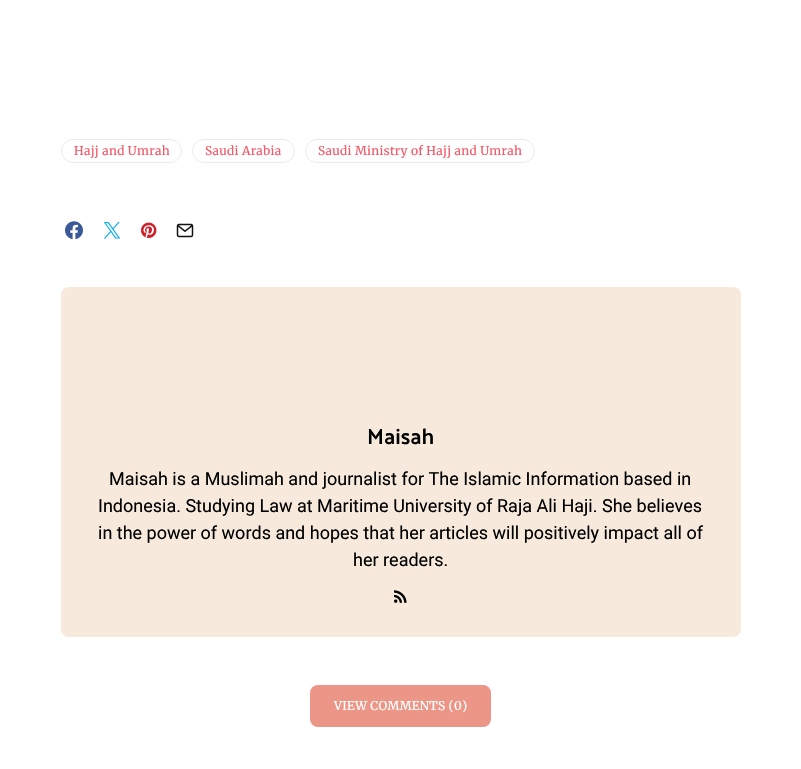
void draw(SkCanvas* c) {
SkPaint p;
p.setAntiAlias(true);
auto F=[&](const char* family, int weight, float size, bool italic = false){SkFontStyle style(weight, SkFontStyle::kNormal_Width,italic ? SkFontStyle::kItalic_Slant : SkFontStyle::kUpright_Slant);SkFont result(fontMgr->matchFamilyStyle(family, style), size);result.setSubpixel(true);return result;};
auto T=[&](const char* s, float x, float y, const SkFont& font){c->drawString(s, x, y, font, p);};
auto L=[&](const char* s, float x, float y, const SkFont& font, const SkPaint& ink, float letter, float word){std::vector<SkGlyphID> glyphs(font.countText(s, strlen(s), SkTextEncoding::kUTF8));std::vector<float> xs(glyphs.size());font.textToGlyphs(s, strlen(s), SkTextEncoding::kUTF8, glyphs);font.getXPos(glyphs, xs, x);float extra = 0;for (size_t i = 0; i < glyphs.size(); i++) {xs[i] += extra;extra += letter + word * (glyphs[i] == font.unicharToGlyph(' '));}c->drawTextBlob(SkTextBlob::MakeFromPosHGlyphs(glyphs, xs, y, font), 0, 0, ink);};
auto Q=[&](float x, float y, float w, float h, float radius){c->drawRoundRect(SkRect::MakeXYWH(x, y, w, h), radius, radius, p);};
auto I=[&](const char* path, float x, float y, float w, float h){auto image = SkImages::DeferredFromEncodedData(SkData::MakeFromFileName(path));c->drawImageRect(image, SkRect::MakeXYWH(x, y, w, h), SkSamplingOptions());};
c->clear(0xffffffff);
p.setStroke(true);
p.setStrokeWidth(1);
p.setColor(0xffe9ecef);
c->drawRoundRect(SkRect::MakeXYWH(61.5,139.5,120,23),11.5,11.5,p);
auto f1 = F("Merriweather",400,12);
p.setStroke(false);
p.setColor(0xfff55867);
L("Hajj and Umrah",74,155,f1,p,.3,0);
p.setStroke(true);
p.setColor(0xffe9ecef);
c->drawRoundRect(SkRect::MakeXYWH(192.5,139.5,102,23),11.5,11.5,p);
p.setStroke(false);
p.setColor(0xfff55867);
L("Saudi Arabia",205,155,f1,p,.3,0);
p.setStroke(true);
p.setColor(0xffe9ecef);
c->drawRoundRect(SkRect::MakeXYWH(305.5,139.5,229,23),11.5,11.5,p);
p.setStroke(false);
p.setColor(0xfff55867);
L("Saudi Ministry of Hajj and Umrah",318,155,f1,p,.3,0);
I("1.png",65,221,18,19);
I("2.png",103,222,18,17);
I("3.png",141,222,16,16);
I("4.png",176,223,18,15);
p.setColor(0xfff7eadd);
Q(61,287,680,350,8);
auto f2 = F("Palanquin",600,22);
p.setColor(0xff000000);
T("Maisah",367,444,f2);
auto f3 = F("Roboto",400,18);
T("Maisah is a Muslimah and journalist for The Islamic Information based in",109,485,f3);
T("Indonesia. Studying Law at Maritime University of Raja Ali Haji. She believes",98,512,f3);
T("in the power of words and hopes that her articles will positively impact all of",98,539,f3);
T("her readers.",353,566,f3);
I("5.png",394,590,13,13);
p.setColor(0xffec9687);
Q(310,685,181,42,8);
p.setColor(0xffffffff);
L("VIEW COMMENTS (0)",334,710,f1,p,.3,0);
}
